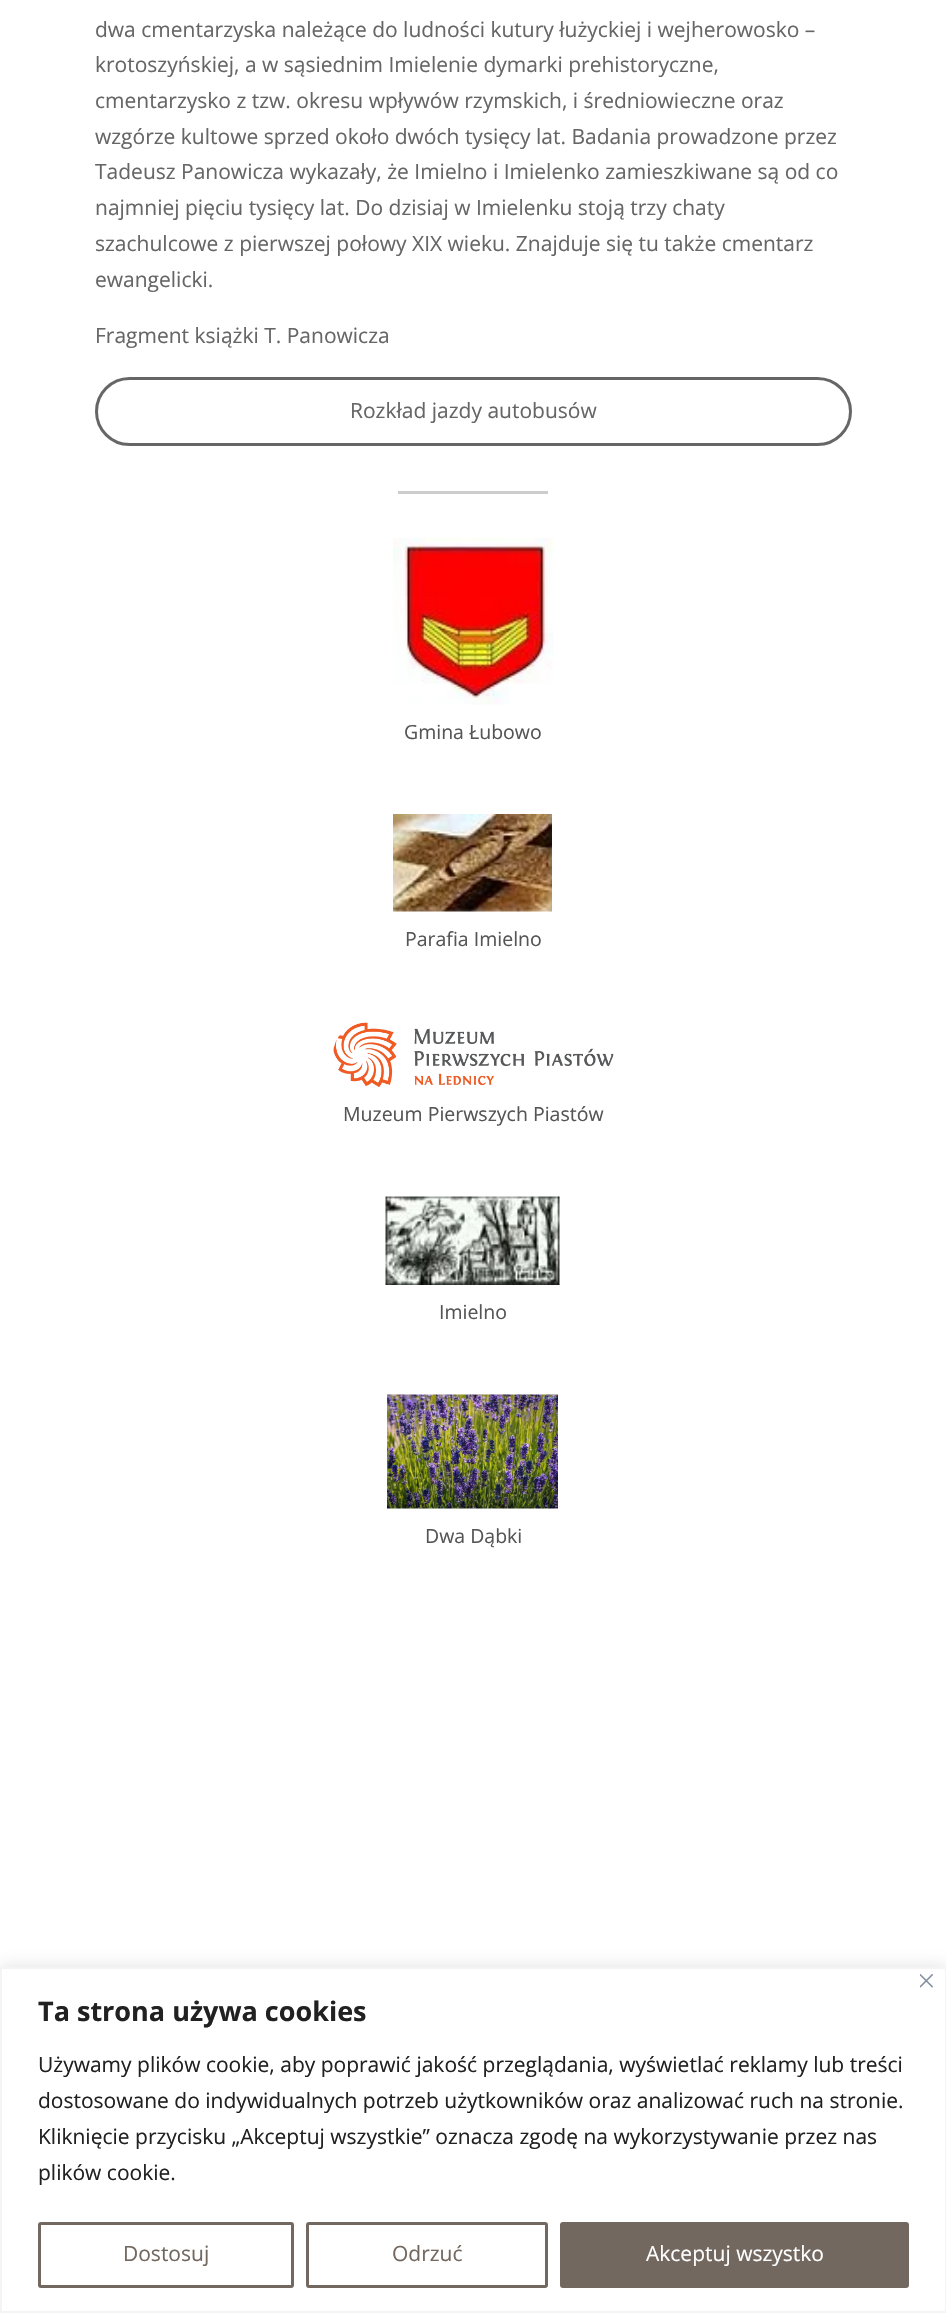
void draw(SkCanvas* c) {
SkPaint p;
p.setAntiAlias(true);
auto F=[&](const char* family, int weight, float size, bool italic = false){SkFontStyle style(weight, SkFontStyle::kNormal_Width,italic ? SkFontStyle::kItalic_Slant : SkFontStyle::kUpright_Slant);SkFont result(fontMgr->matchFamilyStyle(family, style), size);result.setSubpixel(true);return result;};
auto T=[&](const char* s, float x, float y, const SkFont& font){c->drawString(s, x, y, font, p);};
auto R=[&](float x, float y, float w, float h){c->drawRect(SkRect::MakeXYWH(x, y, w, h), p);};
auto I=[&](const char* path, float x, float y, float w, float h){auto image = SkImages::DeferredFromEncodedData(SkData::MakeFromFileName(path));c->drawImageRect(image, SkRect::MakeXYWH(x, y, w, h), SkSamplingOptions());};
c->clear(0xffffffff);
auto f1 = F("Open Sans",400,21);
p.setColor(0xff666666);
T("dwa cmentarzyska należące do ludności kutury łużyckiej i wejherowosko –",95,37,f1);
T("krotoszyńskiej, a w sąsiednim Imielenie dymarki prehistoryczne,",95,72,f1);
T("cmentarzysko z tzw. okresu wpływów rzymskich, i średniowieczne oraz",95,108,f1);
T("wzgórze kultowe sprzed około dwóch tysięcy lat. Badania prowadzone przez",95,144,f1);
T("Tadeusz Panowicza wykazały, że Imielno i Imielenko zamieszkiwane są od co",95,179,f1);
T("najmniej pięciu tysięcy lat. Do dzisiaj w Imielenku stoją trzy chaty",95,215,f1);
T("szachulcowe z pierwszej połowy XIX wieku. Znajduje się tu także cmentarz",95,251,f1);
T("ewangelicki.",95,287,f1);
T("Fragment książki T. Panowicza",95,343,f1);
p.setStroke(true);
p.setStrokeWidth(3);
c->drawRoundRect(SkRect::MakeXYWH(96.5,378.5,754,66),33,33,p);
p.setStroke(false);
T("Rozkład jazdy autobusów",350,418,f1);
p.setColor(0xffcccccc);
R(398,491,150,3);
I("1.png",393,538,161,167);
auto f2 = F("Open Sans",400,19.5);
p.setColor(0xff555555);
T("Gmina Łubowo",404,739,f2);
I("2.png",393,814,159,98);
T("Parafia Imielno",405,946,f2);
I("3.png",333,1022,281,65);
T("Muzeum Pierwszych Piastów",343,1121,f2);
I("4.png",385,1196,175,89);
T("Imielno",439,1319,f2);
I("5.png",387,1394,171,115);
T("Dwa Dąbki",425,1543,f2);
p.setColor(0x4dacabab);
p.setMaskFilter(SkMaskFilter::MakeBlur(kNormal_SkBlurStyle, 7.5));
c->drawRect(SkRect::MakeXYWH(0,1965,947,347),p);
p.setMaskFilter(nullptr);
p.setColor(0xffffffff);
c->drawRect(SkRect::MakeXYWH(1,1968,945,344),p);
p.setStroke(true);
p.setStrokeWidth(2);
p.setColor(0xfff4f4f4);
c->drawRect(SkRect::MakeXYWH(1,1968,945,344),p);
I("6.png",920,1974,13,14);
auto f3 = F("Open Sans",700,27);
p.setStroke(false);
p.setColor(0xff212121);
T("Ta strona używa cookies",38,2021,f3);
T("Używamy plików cookie, aby poprawić jakość przeglądania, wyświetlać reklamy lub treści",38,2072,f1);
T("dostosowane do indywidualnych potrzeb użytkowników oraz analizować ruch na stronie.",38,2108,f1);
T("Kliknięcie przycisku „Akceptuj wszystkie” oznacza zgodę na wykorzystywanie przez nas",38,2144,f1);
T("plików cookie.",38,2180,f1);
p.setStroke(true);
p.setStrokeWidth(3);
p.setColor(0xff73685f);
c->drawRoundRect(SkRect::MakeXYWH(39.5,2223.5,253,63),1.5,1.5,p);
p.setStroke(false);
T("Dostosuj",123,2261,f1);
p.setStroke(true);
c->drawRoundRect(SkRect::MakeXYWH(307.5,2223.5,239,63),1.5,1.5,p);
p.setStroke(false);
T("Odrzuć",392,2261,f1);
c->drawRoundRect(SkRect::MakeXYWH(561.5,2223.5,346,63),1.5,1.5,p);
p.setStroke(true);
c->drawRoundRect(SkRect::MakeXYWH(561.5,2223.5,346,63),1.5,1.5,p);
p.setStroke(false);
p.setColor(0xffffffff);
T("Akceptuj wszystko",646,2261,f1);
}
